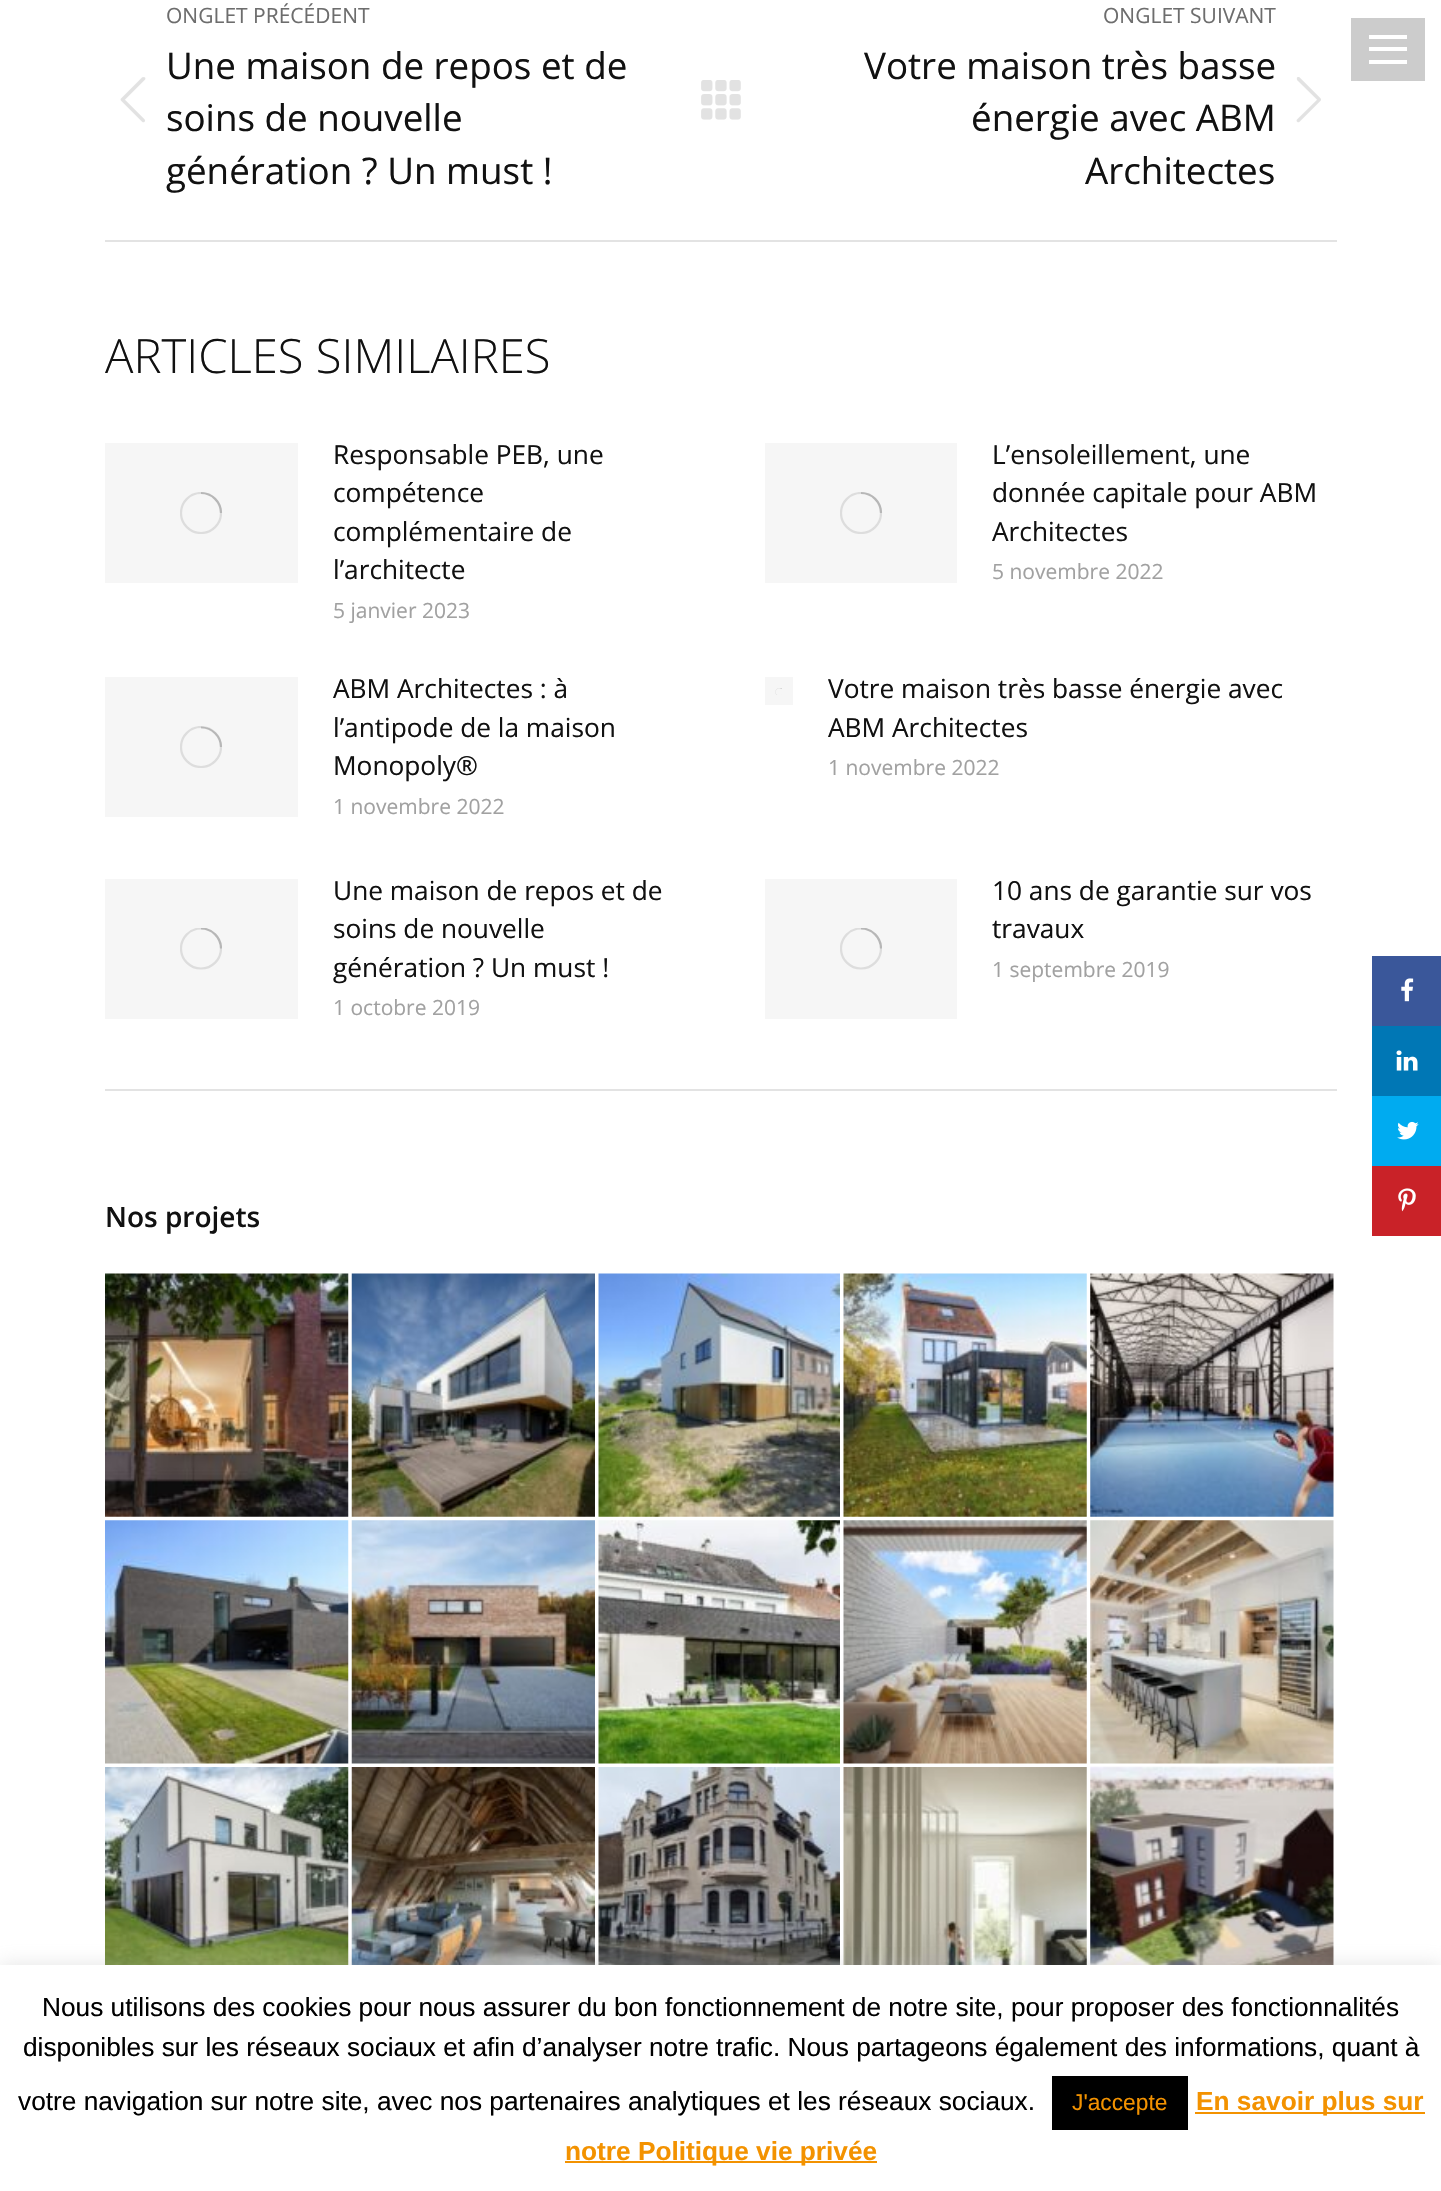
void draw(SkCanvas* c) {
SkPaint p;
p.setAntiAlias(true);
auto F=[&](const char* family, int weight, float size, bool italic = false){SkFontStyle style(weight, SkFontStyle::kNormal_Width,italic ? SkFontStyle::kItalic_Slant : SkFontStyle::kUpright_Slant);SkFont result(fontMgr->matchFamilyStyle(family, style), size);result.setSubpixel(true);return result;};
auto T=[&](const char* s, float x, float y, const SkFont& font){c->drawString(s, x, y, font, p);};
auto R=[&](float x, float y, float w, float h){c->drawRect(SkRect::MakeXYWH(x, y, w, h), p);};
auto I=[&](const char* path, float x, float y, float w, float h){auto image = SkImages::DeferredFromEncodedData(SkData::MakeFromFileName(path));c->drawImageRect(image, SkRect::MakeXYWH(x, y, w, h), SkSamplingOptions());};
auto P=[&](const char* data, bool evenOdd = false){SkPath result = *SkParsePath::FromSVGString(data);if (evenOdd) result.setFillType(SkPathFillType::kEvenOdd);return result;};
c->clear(0xffffffff);
p.setColor(0xffe3e3e3);
R(105,240,1232,2);
auto f1 = F("Open Sans",400,21);
p.setColor(0xff6d6d6d);
T("ONGLET PRÉCÉDENT",166,23,f1);
I("1.png",120,77,26,46);
auto f2 = F("Open Sans",400,36.75);
p.setColor(0xff111111);
T("Une maison de repos et de",166,79,f2);
T("soins de nouvelle",166,131,f2);
T("génération ? Un must !",166,184,f2);
I("2.png",701,80,40,40);
p.setColor(0xff6d6d6d);
T("ONGLET SUIVANT",1103,23,f1);
p.setColor(0xff111111);
T("Votre maison très basse",864,79,f2);
T("énergie avec ABM",971,131,f2);
T("Architectes",1085,184,f2);
I("3.png",1296,77,25,46);
p.setColor(0xffe3e3e3);
R(105,1089,1232,2);
auto f3 = F("Open Sans",300,47.25);
p.setColor(0xff111111);
T("ARTICLES SIMILAIRES",105,373,f3);
p.setColor(0xfff6f6f6);
R(105,443,193,140);
c->save();
c->clipRect(SkRect::MakeXYWH(180,492,42,42));
p.setStroke(true);
p.setStrokeWidth(2.2);
p.setColor(0xffdddddd);
c->drawCircle(201,513,20,p);
c->restore();
p.setColor(0x40424242);
c->drawPath(P("M221 513c0-11-9-20-20-20"),p);
auto f4 = F("Open Sans",400,26.25);
p.setStroke(false);
p.setColor(0xff111111);
T("Responsable PEB, une",333,464,f4);
T("compétence",333,502,f4);
T("complémentaire de",333,541,f4);
T("l’architecte",333,579,f4);
p.setColor(0xffa1a1a1);
T("5 janvier 2023",333,618,f1);
p.setColor(0xfff6f6f6);
R(765,443,192,140);
c->save();
c->clipRect(SkRect::MakeXYWH(840,492,42,42));
p.setStroke(true);
p.setColor(0xffdddddd);
c->drawCircle(861,513,20,p);
c->restore();
p.setColor(0x40424242);
c->drawPath(P("M881 513c0-11-9-20-20-20"),p);
p.setStroke(false);
p.setColor(0xff111111);
T("L’ensoleillement, une",992,464,f4);
T("donnée capitale pour ABM",992,502,f4);
T("Architectes",992,541,f4);
p.setColor(0xffa1a1a1);
T("5 novembre 2022",992,579,f1);
p.setColor(0xfff6f6f6);
R(105,677,193,140);
c->save();
c->clipRect(SkRect::MakeXYWH(180,726,42,42));
p.setStroke(true);
p.setColor(0xffdddddd);
c->drawCircle(201,747,20,p);
c->restore();
p.setColor(0x40424242);
c->drawPath(P("M221 747c0-10.5-9-19.5-20-19.5"),p);
p.setStroke(false);
p.setColor(0xff111111);
T("ABM Architectes : à",333,698,f4);
T("l’antipode de la maison",333,737,f4);
T("Monopoly®",333,775,f4);
p.setColor(0xffa1a1a1);
T("1 novembre 2022",333,814,f1);
p.setColor(0xfff6f6f6);
R(765,677,28,28);
I("4.png",775,688,7,7);
p.setColor(0xff111111);
T("Votre maison très basse énergie avec",828,698,f4);
T("ABM Architectes",828,737,f4);
p.setColor(0xffa1a1a1);
T("1 novembre 2022",828,775,f1);
p.setColor(0xfff6f6f6);
R(105,879,193,140);
c->save();
c->clipRect(SkRect::MakeXYWH(180,928,42,42));
p.setStroke(true);
p.setColor(0xffdddddd);
c->drawCircle(201,948.5,20,p);
p.setColor(0x40424242);
c->drawPath(P("M221 948.5c0-11-9-20-20-20"),p);
c->restore();
p.setStroke(false);
p.setColor(0xff111111);
T("Une maison de repos et de",333,900,f4);
T("soins de nouvelle",333,938,f4);
T("génération ? Un must !",333,977,f4);
p.setColor(0xffa1a1a1);
T("1 octobre 2019",333,1015,f1);
p.setColor(0xfff6f6f6);
R(765,879,192,140);
c->save();
c->clipRect(SkRect::MakeXYWH(840,928,42,42));
p.setStroke(true);
p.setColor(0xffdddddd);
c->drawCircle(861,948.5,20,p);
p.setColor(0x40424242);
c->drawPath(P("M881 948.5c0-11-9-20-20-20"),p);
c->restore();
p.setStroke(false);
p.setColor(0xff111111);
T("10 ans de garantie sur vos",992,900,f4);
T("travaux",992,938,f4);
p.setColor(0xffa1a1a1);
T("1 septembre 2019",992,977,f1);
auto f5 = F("Open Sans",600,28);
p.setColor(0xff111111);
T("Nos projets",105,1227,f5);
I("5.png",105,1273,244,244);
I("6.png",351,1273,244,244);
I("7.png",598,1273,242,244);
I("8.png",843,1273,244,244);
I("9.png",1090,1273,244,244);
I("10.png",105,1520,244,244);
I("11.png",351,1520,244,244);
I("12.png",598,1520,242,244);
I("13.png",843,1520,244,244);
I("14.png",1090,1520,244,244);
I("15.png",105,1767,244,198);
I("16.png",351,1767,244,198);
I("17.png",598,1767,242,198);
I("18.png",843,1767,244,198);
I("19.png",1090,1766,244,199);
p.setColor(0xffcccccc);
R(1351,18,74,63);
p.setColor(0xffffffff);
R(1369,35,38,4);
R(1369,47,38,4);
R(1369,60,38,4);
p.setColor(0xff3a579a);
R(1372,956,69,70);
I("20.png",1401,978,13,24);
p.setColor(0xff0077b5);
R(1372,1026,69,70);
I("21.png",1396,1050,22,21);
p.setColor(0xff00abf0);
R(1372,1096,69,70);
I("22.png",1397,1121,22,19);
p.setColor(0xffc92228);
R(1372,1166,69,70);
I("23.png",1398,1188,18,24);
p.setColor(0x4dacabab);
p.setMaskFilter(SkMaskFilter::MakeBlur(kNormal_SkBlurStyle, 9));
c->drawRect(SkRect::MakeXYWH(0,1964,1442,225),p);
p.setMaskFilter(nullptr);
p.setColor(0xffffffff);
R(0,1965,1441,226);
auto f6 = F("Liberation Sans",400,26.25);
p.setColor(0xff000000);
T("Nous utilisons des cookies pour nous assurer du bon fonctionnement de notre site, pour proposer des fonctionnalités",42,2016,f6);
T("disponibles sur les réseaux sociaux et afin d’analyser notre trafic. Nous partageons également des informations, quant à",23,2056,f6);
T("votre navigation sur notre site, avec nos partenaires analytiques et les réseaux sociaux.",18,2110,f6);
R(1052,2076,136,54);
auto f7 = F("Liberation Sans",400,22.75);
p.setColor(0xfff39200);
T("J'accepte",1072,2110,f7);
R(1195,2112,230,2);
auto f8 = F("Liberation Sans",700,26.25);
T("En savoir plus sur",1196,2110,f8);
R(565,2161,312,2);
T("notre Politique vie privée",565,2160,f8);
}
